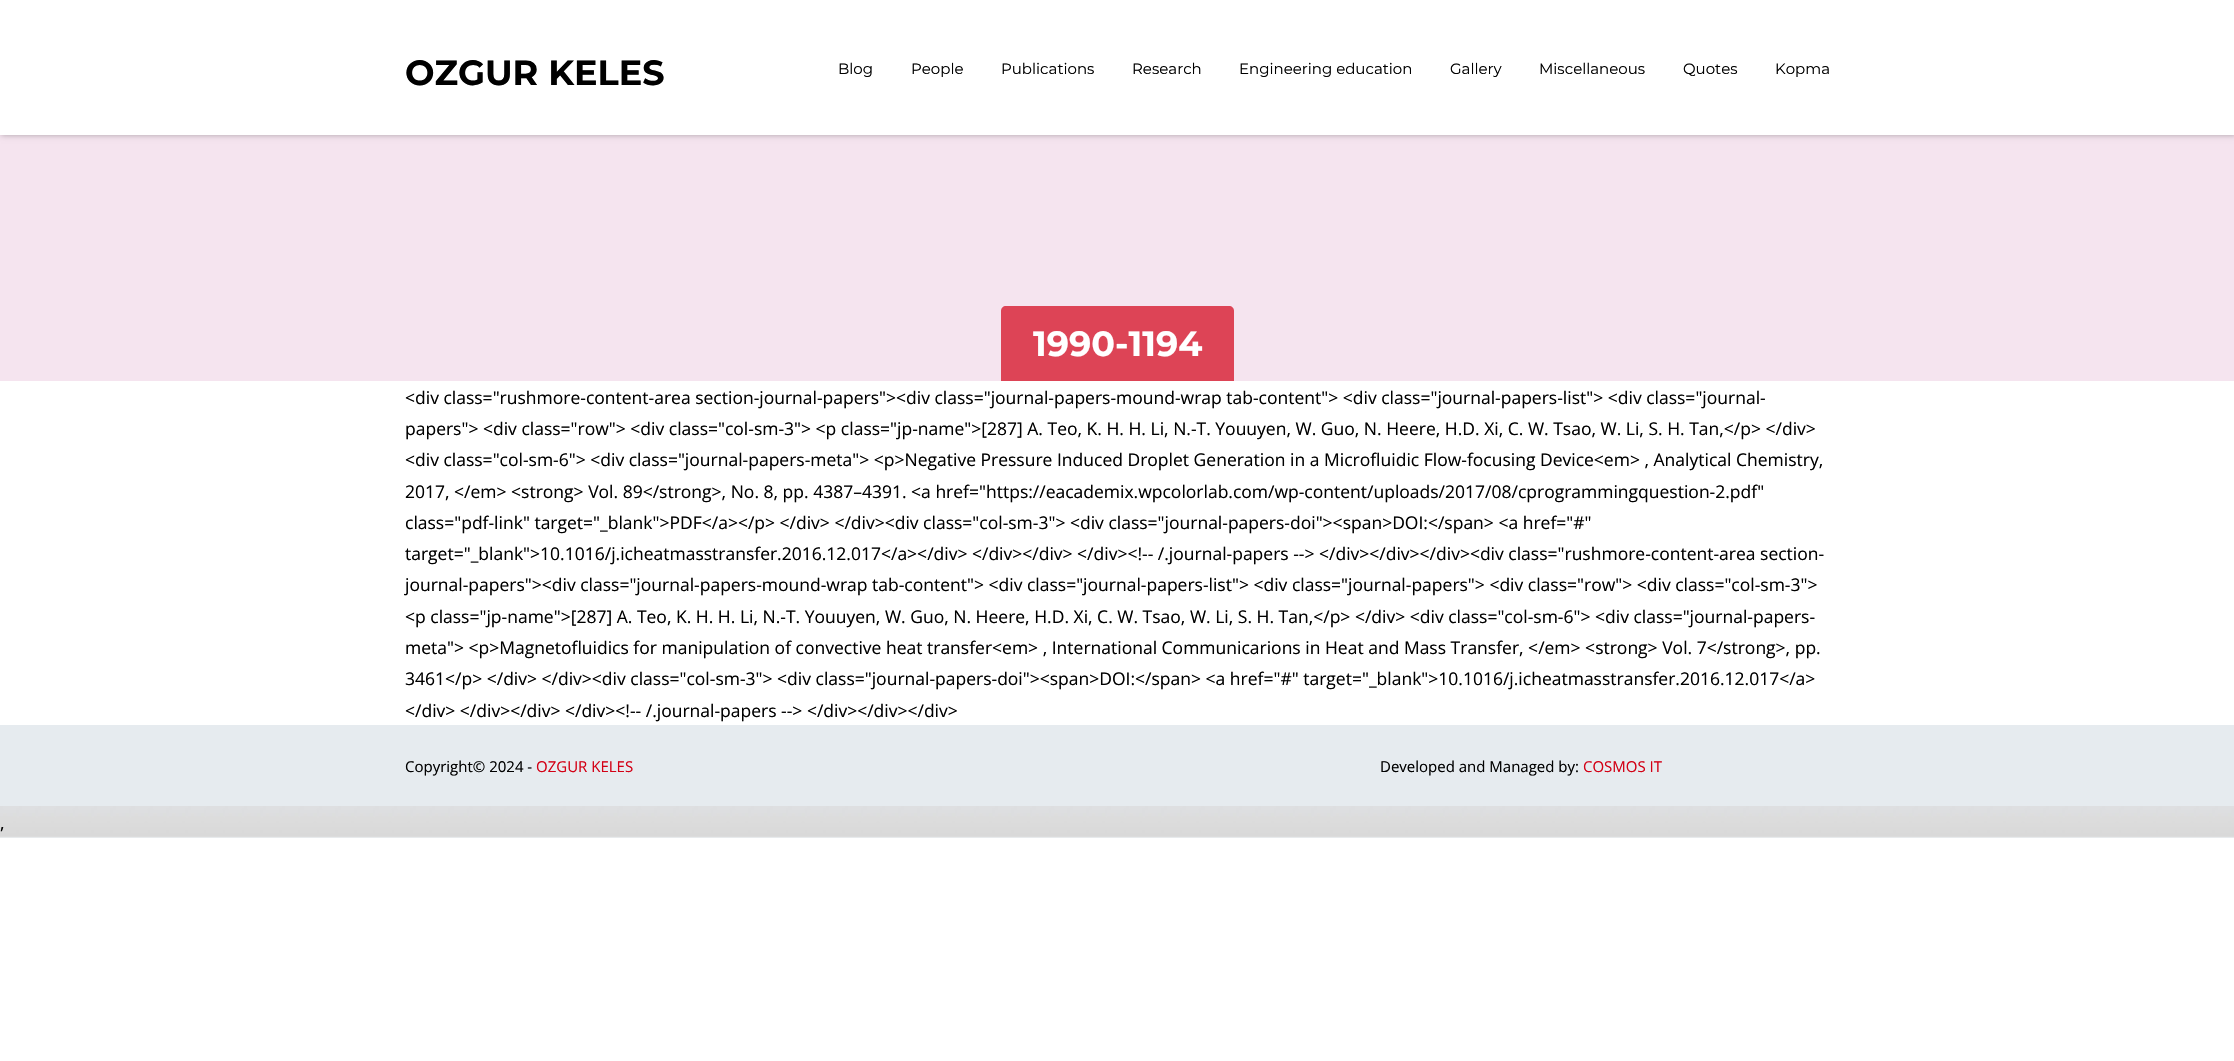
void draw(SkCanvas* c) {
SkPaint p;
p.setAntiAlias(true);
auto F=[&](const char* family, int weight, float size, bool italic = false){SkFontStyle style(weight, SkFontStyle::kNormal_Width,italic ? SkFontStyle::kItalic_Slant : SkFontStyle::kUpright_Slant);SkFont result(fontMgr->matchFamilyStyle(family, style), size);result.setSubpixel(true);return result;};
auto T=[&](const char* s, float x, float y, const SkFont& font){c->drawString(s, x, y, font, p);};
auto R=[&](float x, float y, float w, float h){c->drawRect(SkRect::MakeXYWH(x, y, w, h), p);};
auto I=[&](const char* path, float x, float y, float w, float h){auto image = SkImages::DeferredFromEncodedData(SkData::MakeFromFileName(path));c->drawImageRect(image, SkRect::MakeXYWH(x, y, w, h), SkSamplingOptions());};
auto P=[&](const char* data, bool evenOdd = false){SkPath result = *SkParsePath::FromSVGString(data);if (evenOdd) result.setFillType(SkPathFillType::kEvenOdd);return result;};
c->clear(0xffffffff);
p.setColor(0xfff5e4ef);
R(0,135,2234,246);
p.setColor(0x4d000000);
p.setMaskFilter(SkMaskFilter::MakeBlur(kNormal_SkBlurStyle, 3));
c->drawRect(SkRect::MakeXYWH(1,0,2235,135),p);
p.setMaskFilter(nullptr);
p.setColor(0xffffffff);
R(0,0,2234,135);
auto f1 = F("Montserrat",700,35);
p.setColor(0xff000000);
T("OZGUR KELES",405,85,f1);
auto f2 = F("Montserrat",400,15);
T("Blog",838,74,f2);
T("People",911,74,f2);
T("Publications",1001,74,f2);
T("Research",1132,74,f2);
T("Engineering education",1239,74,f2);
T("Gallery",1450,74,f2);
T("Miscellaneous",1539,74,f2);
T("Quotes",1683,74,f2);
T("Kopma",1775,74,f2);
p.setColor(0xffdd4456);
c->drawPath(P("M1006 306h223c3 0 5 2 5 5v70h-233v-70c0-3 2-5 5-5z"),p);
p.setColor(0xffffffff);
T("1990-1194",1033,356,f1);
auto f3 = F("Open Sans",400,17.5);
p.setColor(0xff000000);
T("<div class=\"rushmore-content-area section-journal-papers\"><div class=\"journal-papers-mound-wrap tab-content\"> <div class=\"journal-papers-list\"> <div class=\"journal-",405,404,f3);
T("papers\"> <div class=\"row\"> <div class=\"col-sm-3\"> <p class=\"jp-name\">[287] A. Teo, K. H. H. Li, N.-T. Youuyen, W. Guo, N. Heere, H.D. Xi, C. W. Tsao, W. Li, S. H. Tan,</p> </div>",405,435,f3);
T("<div class=\"col-sm-6\"> <div class=\"journal-papers-meta\"> <p>Negative Pressure Induced Droplet Generation in a Microfluidic Flow-focusing Device<em> , Analytical Chemistry,",405,466,f3);
T("2017, </em> <strong> Vol. 89</strong>, No. 8, pp. 4387–4391. <a href=\"https://eacademix.wpcolorlab.com/wp-content/uploads/2017/08/cprogrammingquestion-2.pdf\"",405,498,f3);
T("class=\"pdf-link\" target=\"_blank\">PDF</a></p> </div> </div><div class=\"col-sm-3\"> <div class=\"journal-papers-doi\"><span>DOI:</span> <a href=\"#\"",405,529,f3);
T("target=\"_blank\">10.1016/j.icheatmasstransfer.2016.12.017</a></div> </div></div> </div><!-- /.journal-papers --> </div></div></div><div class=\"rushmore-content-area section-",405,560,f3);
T("journal-papers\"><div class=\"journal-papers-mound-wrap tab-content\"> <div class=\"journal-papers-list\"> <div class=\"journal-papers\"> <div class=\"row\"> <div class=\"col-sm-3\">",405,591,f3);
T("<p class=\"jp-name\">[287] A. Teo, K. H. H. Li, N.-T. Youuyen, W. Guo, N. Heere, H.D. Xi, C. W. Tsao, W. Li, S. H. Tan,</p> </div> <div class=\"col-sm-6\"> <div class=\"journal-papers-",405,623,f3);
T("meta\"> <p>Magnetofluidics for manipulation of convective heat transfer<em> , International Communicarions in Heat and Mass Transfer, </em> <strong> Vol. 7</strong>, pp.",405,654,f3);
T("3461</p> </div> </div><div class=\"col-sm-3\"> <div class=\"journal-papers-doi\"><span>DOI:</span> <a href=\"#\" target=\"_blank\">10.1016/j.icheatmasstransfer.2016.12.017</a>",405,685,f3);
T("</div> </div></div> </div><!-- /.journal-papers --> </div></div></div>",405,717,f3);
p.setColor(0xffedf2f6);
R(0,837,2234,1);
I("1.png",0,806,2234,32);
p.setColor(0xffe6ebef);
R(0,725,2234,81);
auto f4 = F("Open Sans",400,15);
p.setColor(0xff000000);
T("Copyright© 2024 -",405,772,f4);
p.setColor(0xffd30015);
T("OZGUR KELES",536,772,f4);
p.setColor(0xff000000);
T("Developed and Managed by:",1380,772,f4);
p.setColor(0xffd30015);
T("COSMOS IT",1583,772,f4);
p.setColor(0xff000000);
T(",",0,829,f3);
}
